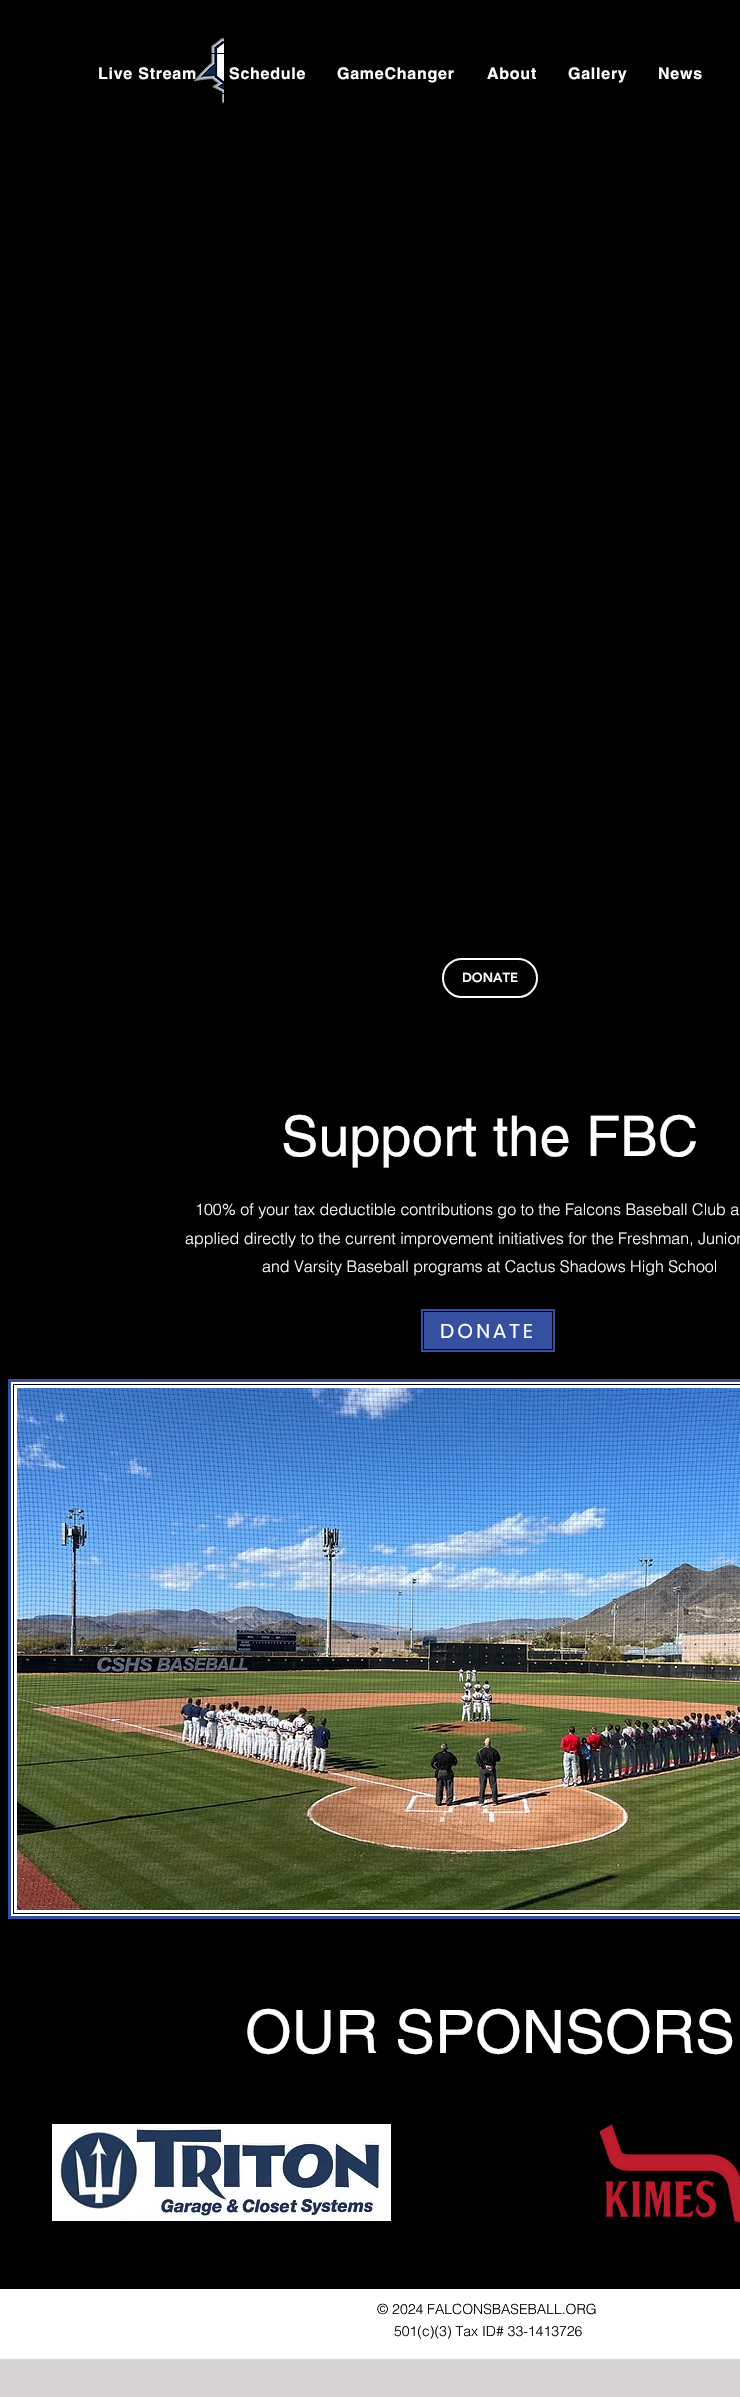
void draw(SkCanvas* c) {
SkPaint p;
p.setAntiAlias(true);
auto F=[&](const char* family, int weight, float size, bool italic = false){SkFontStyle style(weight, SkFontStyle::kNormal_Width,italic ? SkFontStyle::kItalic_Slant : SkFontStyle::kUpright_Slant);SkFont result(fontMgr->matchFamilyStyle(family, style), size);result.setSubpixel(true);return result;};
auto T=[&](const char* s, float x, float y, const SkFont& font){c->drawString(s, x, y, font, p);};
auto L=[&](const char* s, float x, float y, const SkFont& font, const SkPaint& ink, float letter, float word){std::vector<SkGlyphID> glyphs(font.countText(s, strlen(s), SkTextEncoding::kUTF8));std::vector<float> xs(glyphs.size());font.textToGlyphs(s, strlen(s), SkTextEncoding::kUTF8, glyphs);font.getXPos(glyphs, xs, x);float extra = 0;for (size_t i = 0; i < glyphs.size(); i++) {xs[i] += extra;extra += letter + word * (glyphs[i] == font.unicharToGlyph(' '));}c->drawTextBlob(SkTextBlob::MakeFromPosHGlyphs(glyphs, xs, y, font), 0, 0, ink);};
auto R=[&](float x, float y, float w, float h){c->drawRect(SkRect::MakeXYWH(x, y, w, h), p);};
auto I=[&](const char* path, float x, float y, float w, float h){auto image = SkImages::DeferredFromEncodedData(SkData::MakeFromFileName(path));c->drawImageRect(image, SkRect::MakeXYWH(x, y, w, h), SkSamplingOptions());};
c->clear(0xffd6d4d4);
p.setColor(0xff000000);
R(0,0,740,2289);
I("1.png",194,38,30,66);
p.setStroke(true);
p.setStrokeWidth(1);
c->drawRect(SkRect::MakeXYWH(86.5,53.5,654,40),p);
auto f1 = F("helvetica",700,16);
p.setStroke(false);
p.setColor(0xffffffff);
L("Live Stream",98,79,f1,p,.75,0);
L("Schedule",229,79,f1,p,.75,0);
L("GameChanger",337,79,f1,p,.75,0);
L("About",487,79,f1,p,.75,0);
L("Gallery",568,79,f1,p,.75,0);
L("News",658,79,f1,p,.75,0);
p.setStroke(true);
p.setStrokeWidth(2);
c->drawRoundRect(SkRect::MakeXYWH(443,959,94,38),19,19,p);
auto f2 = F("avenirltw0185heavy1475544",900,13);
p.setStroke(false);
T("DONATE",462,982,f2);
auto f3 = F("helvetica",400,56);
T("Support the FBC",281,1156,f3);
auto f4 = F("helvetica",300,16);
T("100% of your tax deductible contributions go to the Falcons Baseball Club a",195,1215,f4);
T("applied directly to the current improvement initiatives for the Freshman, Junior",185,1244,f4);
T("and Varsity Baseball programs at Cactus Shadows High School",262,1272,f4);
p.setColor(0xff354fa1);
R(421,1309,134,43);
p.setStroke(true);
p.setStrokeWidth(1);
p.setColor(0xff000000);
c->drawRect(SkRect::MakeXYWH(423.5,1311.5,129,38),p);
auto f5 = F("Poppins",400,20);
p.setStroke(false);
p.setColor(0xffffffff);
L("DONATE",440,1338,f5,p,3,0);
c->drawRect(SkRect::MakeXYWH(9.5,1380.5,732,537),p);
p.setStroke(true);
p.setStrokeWidth(3);
p.setColor(0xff354fa1);
c->drawRect(SkRect::MakeXYWH(9.5,1380.5,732,537),p);
I("2.png",17,1388,723,522);
p.setStrokeWidth(1);
p.setColor(0xff000000);
c->drawRect(SkRect::MakeXYWH(13.5,1384.5,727,529),p);
auto f6 = F("helvetica",400,60);
p.setStroke(false);
p.setColor(0xffffffff);
T("OUR SPONSORS",245,2053,f6);
I("3.png",52,2124,339,97);
I("4.png",600,2124,140,99);
R(0,2289,740,70);
auto f7 = F("helvetica",300,14);
p.setColor(0xff000000);
T("© 2024 FALCONSBASEBALL.ORG",377,2314,f7);
T("501(c)(3) Tax ID# 33-1413726",394,2336,f7);
}
